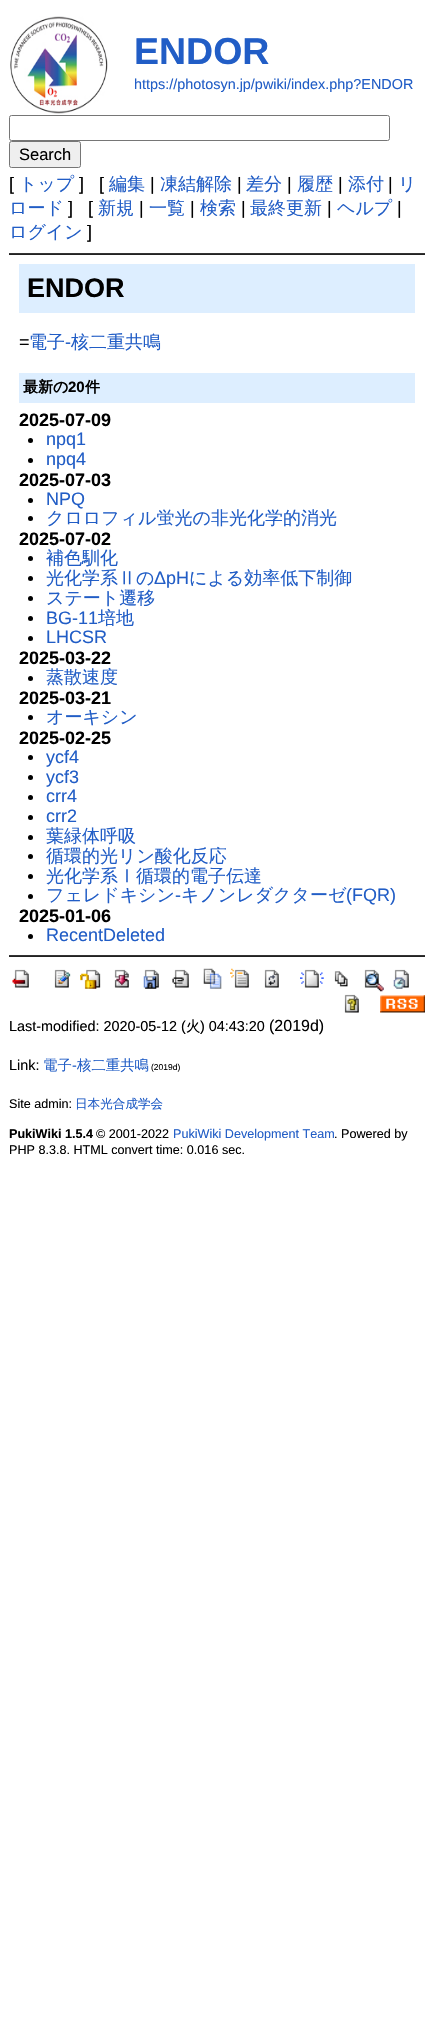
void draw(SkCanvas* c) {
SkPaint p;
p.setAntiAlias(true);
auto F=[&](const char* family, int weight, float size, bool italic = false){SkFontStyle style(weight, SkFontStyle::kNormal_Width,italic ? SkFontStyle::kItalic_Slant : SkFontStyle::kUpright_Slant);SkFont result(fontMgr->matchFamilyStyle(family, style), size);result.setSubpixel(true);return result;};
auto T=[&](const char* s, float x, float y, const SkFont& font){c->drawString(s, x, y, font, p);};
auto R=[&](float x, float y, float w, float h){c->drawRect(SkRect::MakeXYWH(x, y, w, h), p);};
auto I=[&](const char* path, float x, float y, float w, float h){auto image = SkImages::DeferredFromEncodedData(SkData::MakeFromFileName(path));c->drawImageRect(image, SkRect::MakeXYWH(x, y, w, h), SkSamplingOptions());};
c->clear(0xffffffff);
I("1.png",10,16,98,98);
auto f1 = F("Liberation Sans",700,37.5);
p.setColor(0xff215dc6);
T("ENDOR",134,64,f1);
auto f2 = F("Liberation Sans",400,14.4);
T("https://photosyn.jp/pwiki/index.php?ENDOR",134,89,f2);
p.setStroke(true);
p.setStrokeWidth(1);
p.setColor(0xff767676);
c->drawRoundRect(SkRect::MakeXYWH(9.5,115.5,380,25),2,2,p);
p.setStroke(false);
p.setColor(0xffefefef);
c->drawRoundRect(SkRect::MakeXYWH(9.5,141.5,71,26),2,2,p);
p.setStroke(true);
p.setColor(0xff767676);
c->drawRoundRect(SkRect::MakeXYWH(9.5,141.5,71,26),2,2,p);
auto f3 = F("Liberation Sans",400,16.5);
p.setStroke(false);
p.setColor(0xff000000);
T("Search",19,160,f3);
auto f4 = F("Liberation Sans",400,18);
T("[",9,190,f4);
auto f5 = F("WenQuanYi Zen Hei",500,18);
p.setColor(0xff215dc6);
T("トップ",19,190,f5);
p.setColor(0xff000000);
T("]",79,190,f4);
T("[",99,190,f4);
p.setColor(0xff215dc6);
T("編集",109,190,f5);
p.setColor(0xff000000);
T("|",150,190,f4);
p.setColor(0xff215dc6);
T("凍結解除",160,190,f5);
p.setColor(0xff000000);
T("|",237,190,f4);
p.setColor(0xff215dc6);
T("差分",246,190,f5);
p.setColor(0xff000000);
T("|",287,190,f4);
p.setColor(0xff215dc6);
T("履歴",297,190,f5);
p.setColor(0xff000000);
T("|",338,190,f4);
p.setColor(0xff215dc6);
T("添付",348,190,f5);
p.setColor(0xff000000);
T("|",388,190,f4);
p.setColor(0xff215dc6);
T("リ",398,190,f5);
T("ロード",9,214,f5);
p.setColor(0xff000000);
T("]",68,214,f4);
T("[",88,214,f4);
p.setColor(0xff215dc6);
T("新規",98,214,f5);
p.setColor(0xff000000);
T("|",139,214,f4);
p.setColor(0xff215dc6);
T("一覧",149,214,f5);
p.setColor(0xff000000);
T("|",190,214,f4);
p.setColor(0xff215dc6);
T("検索",200,214,f5);
p.setColor(0xff000000);
T("|",241,214,f4);
p.setColor(0xff215dc6);
T("最終更新",250,214,f5);
p.setColor(0xff000000);
T("|",327,214,f4);
p.setColor(0xff215dc6);
T("ヘルプ",337,214,f5);
p.setColor(0xff000000);
T("|",397,214,f4);
p.setColor(0xff215dc6);
T("ログイン",9,238,f5);
p.setColor(0xff000000);
T("]",87,238,f4);
p.setColor(0xff333333);
R(9,253,416,1);
p.setColor(0xff222222);
R(9,254,416,1);
p.setColor(0xffddeeff);
R(19,264,396,49);
auto f6 = F("Liberation Sans",700,27);
p.setColor(0xff000000);
T("ENDOR",27,297,f6);
T("=",19,348,f4);
p.setColor(0xff215dc6);
T("電子",29,348,f5);
T("-",65,348,f4);
T("核二重共鳴",71,348,f5);
p.setColor(0xffddeeff);
R(19,373,396,30);
auto f7 = F("WenQuanYi Zen Hei",700,15);
p.setColor(0xff000000);
T("最新の",23,392,f7);
auto f8 = F("Liberation Sans",700,15);
T("20",68,392,f8);
T("件",85,392,f7);
auto f9 = F("Liberation Sans",700,18);
T("2025-07-09",19,426,f9);
c->drawCircle(30.5,440.5,2.5,p);
p.setColor(0xff215dc6);
T("npq1",46,445,f4);
p.setColor(0xff000000);
c->drawCircle(30.5,460.5,2.5,p);
p.setColor(0xff215dc6);
T("npq4",46,465,f4);
p.setColor(0xff000000);
T("2025-07-03",19,486,f9);
c->drawCircle(30.5,500.5,2.5,p);
p.setColor(0xff215dc6);
T("NPQ",46,505,f4);
p.setColor(0xff000000);
c->drawCircle(30.5,518.5,2.5,p);
p.setColor(0xff215dc6);
T("クロロフィル蛍光の非光化学的消光",46,524,f5);
p.setColor(0xff000000);
T("2025-07-02",19,545,f9);
c->drawCircle(30.5,558.5,2.5,p);
p.setColor(0xff215dc6);
T("補色馴化",46,564,f5);
p.setColor(0xff000000);
c->drawCircle(30.5,578.5,2.5,p);
p.setColor(0xff215dc6);
T("光化学系Ⅱの",46,584,f5);
T("ΔpH",154,584,f4);
T("による効率低下制御",189,584,f5);
p.setColor(0xff000000);
c->drawCircle(30.5,598.5,2.5,p);
p.setColor(0xff215dc6);
T("ステート遷移",46,604,f5);
p.setColor(0xff000000);
c->drawCircle(30.5,618.5,2.5,p);
p.setColor(0xff215dc6);
T("BG-11",46,624,f4);
T("培地",98,624,f5);
p.setColor(0xff000000);
c->drawCircle(30.5,638.5,2.5,p);
p.setColor(0xff215dc6);
T("LHCSR",46,643,f4);
p.setColor(0xff000000);
T("2025-03-22",19,664,f9);
c->drawCircle(30.5,678.5,2.5,p);
p.setColor(0xff215dc6);
T("蒸散速度",46,683,f5);
p.setColor(0xff000000);
T("2025-03-21",19,704,f9);
c->drawCircle(30.5,717.5,2.5,p);
p.setColor(0xff215dc6);
T("オーキシン",46,723,f5);
p.setColor(0xff000000);
T("2025-02-25",19,744,f9);
c->drawCircle(30.5,757.5,2.5,p);
p.setColor(0xff215dc6);
T("ycf4",46,763,f4);
p.setColor(0xff000000);
c->drawCircle(30.5,777.5,2.5,p);
p.setColor(0xff215dc6);
T("ycf3",46,783,f4);
p.setColor(0xff000000);
c->drawCircle(30.5,797.5,2.5,p);
p.setColor(0xff215dc6);
T("crr4",46,802,f4);
p.setColor(0xff000000);
c->drawCircle(30.5,817.5,2.5,p);
p.setColor(0xff215dc6);
T("crr2",46,822,f4);
p.setColor(0xff000000);
c->drawCircle(30.5,837.5,2.5,p);
p.setColor(0xff215dc6);
T("葉緑体呼吸",46,842,f5);
p.setColor(0xff000000);
c->drawCircle(30.5,856.5,2.5,p);
p.setColor(0xff215dc6);
T("循環的光リン酸化反応",46,862,f5);
p.setColor(0xff000000);
c->drawCircle(30.5,876.5,2.5,p);
p.setColor(0xff215dc6);
T("光化学系Ⅰ循環的電子伝達",46,882,f5);
p.setColor(0xff000000);
c->drawCircle(30.5,896.5,2.5,p);
p.setColor(0xff215dc6);
T("フェレドキシン",46,901,f5);
T("-",175,901,f4);
T("キノンレダクターゼ",181,901,f5);
T("(FQR)",346,901,f4);
p.setColor(0xff000000);
T("2025-01-06",19,922,f9);
c->drawCircle(30.5,936.5,2.5,p);
p.setColor(0xff215dc6);
T("RecentDeleted",46,941,f4);
p.setColor(0xff333333);
R(9,955,416,1);
p.setColor(0xff222222);
R(9,956,416,1);
I("2.png",12,969,17,19);
I("3.png",54,969,17,19);
I("4.png",80,969,21,20);
I("5.png",114,969,15,19);
I("6.png",143,969,16,20);
I("7.png",172,969,17,19);
I("8.png",203,968,19,21);
I("9.png",230,968,19,20);
I("10.png",264,969,15,19);
I("11.png",300,969,24,19);
I("12.png",334,971,14,16);
I("13.png",364,969,20,23);
I("14.png",393,969,16,20);
I("15.png",344,994,15,19);
I("16.png",380,995,45,18);
p.setColor(0xff000000);
T("Last-modified: 2020-05-12 (",9,1031,f2);
auto f10 = F("WenQuanYi Zen Hei",500,14.4);
T("火",186,1031,f10);
T(") 04:43:20",200,1031,f2);
auto f11 = F("Liberation Sans",400,16);
T("(2019d)",269,1031,f11);
T("Link:",9,1070,f2);
p.setColor(0xff215dc6);
T("電子",43,1070,f10);
T("-",72,1070,f2);
T("核二重共鳴",77,1070,f10);
auto f12 = F("Liberation Sans",400,8.5);
p.setColor(0xff000000);
T("(2019d)",151,1070,f12);
auto f13 = F("Liberation Sans",400,12.6);
T("Site admin:",9,1108,f13);
auto f14 = F("WenQuanYi Zen Hei",500,12.6);
p.setColor(0xff215dc6);
T("日本光合成学会",75,1108,f14);
auto f15 = F("Liberation Sans",700,12.6);
p.setColor(0xff000000);
T("PukiWiki 1.5.4",9,1138,f15);
T("© 2001-2022",96,1138,f13);
p.setColor(0xff215dc6);
T("PukiWiki Development Team",173,1138,f13);
p.setColor(0xff000000);
T(". Powered by",334,1138,f13);
T("PHP 8.3.8. HTML convert time: 0.016 sec.",9,1154,f13);
}
